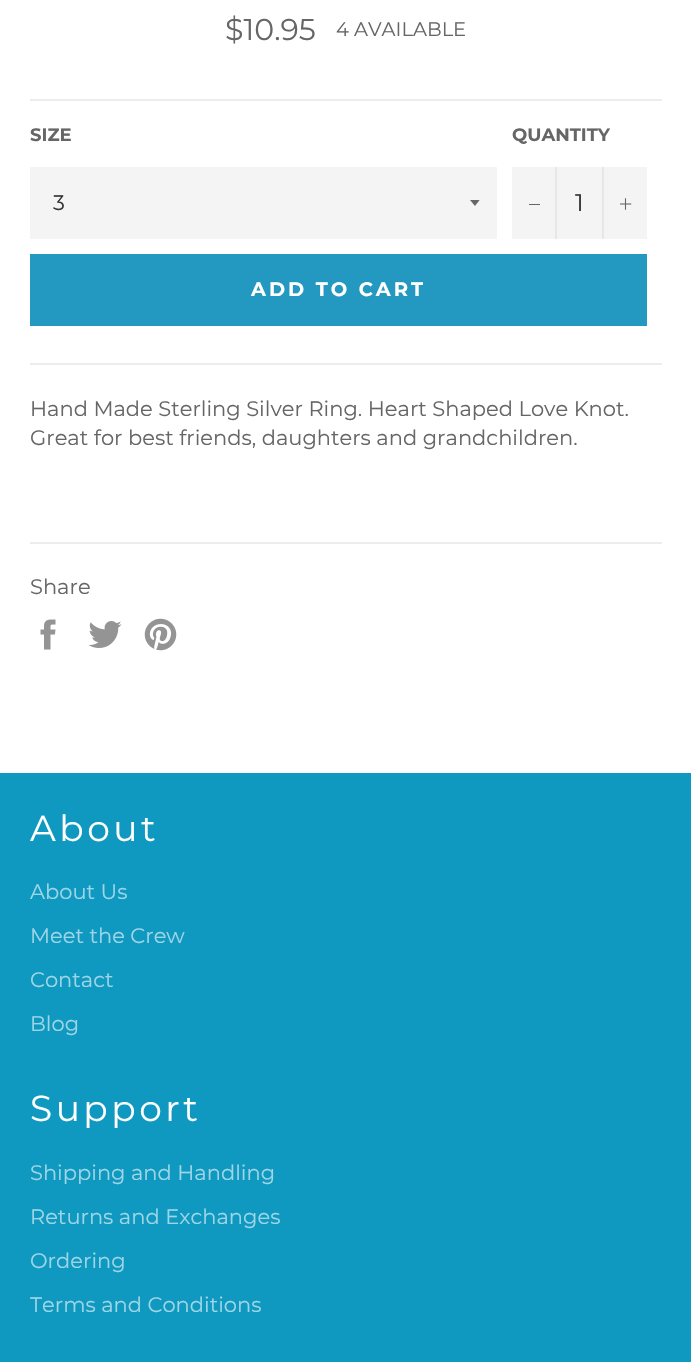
void draw(SkCanvas* c) {
SkPaint p;
p.setAntiAlias(true);
auto F=[&](const char* family, int weight, float size, bool italic = false){SkFontStyle style(weight, SkFontStyle::kNormal_Width,italic ? SkFontStyle::kItalic_Slant : SkFontStyle::kUpright_Slant);SkFont result(fontMgr->matchFamilyStyle(family, style), size);result.setSubpixel(true);return result;};
auto T=[&](const char* s, float x, float y, const SkFont& font){c->drawString(s, x, y, font, p);};
auto L=[&](const char* s, float x, float y, const SkFont& font, const SkPaint& ink, float letter, float word){std::vector<SkGlyphID> glyphs(font.countText(s, strlen(s), SkTextEncoding::kUTF8));std::vector<float> xs(glyphs.size());font.textToGlyphs(s, strlen(s), SkTextEncoding::kUTF8, glyphs);font.getXPos(glyphs, xs, x);float extra = 0;for (size_t i = 0; i < glyphs.size(); i++) {xs[i] += extra;extra += letter + word * (glyphs[i] == font.unicharToGlyph(' '));}c->drawTextBlob(SkTextBlob::MakeFromPosHGlyphs(glyphs, xs, y, font), 0, 0, ink);};
auto R=[&](float x, float y, float w, float h){c->drawRect(SkRect::MakeXYWH(x, y, w, h), p);};
auto I=[&](const char* path, float x, float y, float w, float h){auto image = SkImages::DeferredFromEncodedData(SkData::MakeFromFileName(path));c->drawImageRect(image, SkRect::MakeXYWH(x, y, w, h), SkSamplingOptions());};
auto P=[&](const char* data, bool evenOdd = false){SkPath result = *SkParsePath::FromSVGString(data);if (evenOdd) result.setFillType(SkPathFillType::kEvenOdd);return result;};
c->clear(0xffffffff);
auto f1 = F("Montserrat",400,30);
p.setColor(0xff666666);
T("$10.95",225,40,f1);
auto f2 = F("Montserrat",400,19.5);
T("4 AVAILABLE",336,36,f2);
p.setColor(0xffededed);
R(30,99,632,2);
auto f3 = F("Montserrat",700,18);
p.setColor(0xff666666);
T("SIZE",30,141,f3);
p.setColor(0xfff4f4f4);
R(30,167,467,72);
c->save();
c->clipRect(SkRect::MakeXYWH(470,200,12,7));
p.setColor(0xff666666);
c->drawPath(P("M469.5 199.5l5.5 6.5l5-6.5z"),p);
c->restore();
auto f4 = F("Montserrat",400,21);
p.setColor(0xff333333);
T("3",53,210,f4);
p.setColor(0xff666666);
T("QUANTITY",512,141,f3);
p.setColor(0xfff4f4f4);
R(512,167,135,72);
p.setColor(0xffe7e7e7);
R(555,167,2,72);
p.setColor(0xff666666);
R(529,204,11,1);
auto f5 = F("Montserrat",400,24);
p.setColor(0xff333333);
T("1",575,211,f5);
p.setColor(0xffe7e7e7);
R(602,167,2,72);
I("1.png",620,198,12,12);
p.setColor(0xff2398c1);
R(30,254,617,72);
auto f6 = F("Montserrat",700,19.5);
p.setColor(0xffffffff);
L("ADD TO CART",251,296,f6,p,3,0);
p.setColor(0xffededed);
R(30,363,632,2);
p.setColor(0xff666666);
T("Hand Made Sterling Silver Ring. Heart Shaped Love Knot.",30,416,f4);
T("Great for best friends, daughters and grandchildren.",30,445,f4);
p.setColor(0xffededed);
R(30,542,632,2);
p.setColor(0xff666666);
T("Share",30,594,f4);
I("2.png",40,619,16,31);
I("3.png",88,621,34,27);
I("4.png",144,618,33,33);
p.setColor(0xff0f99c1);
R(0,773,691,589);
auto f7 = F("Montserrat",400,36);
p.setColor(0xffffffff);
L("About",30,841,f7,p,3.5,0);
p.setColor(0xff9fd6e6);
T("About Us",30,899,f4);
T("Meet the Crew",30,943,f4);
T("Contact",30,987,f4);
T("Blog",30,1031,f4);
p.setColor(0xffffffff);
L("Support",30,1121,f7,p,3.5,0);
p.setColor(0xff9fd6e6);
T("Shipping and Handling",30,1180,f4);
T("Returns and Exchanges",30,1224,f4);
T("Ordering",30,1268,f4);
T("Terms and Conditions",30,1312,f4);
}
